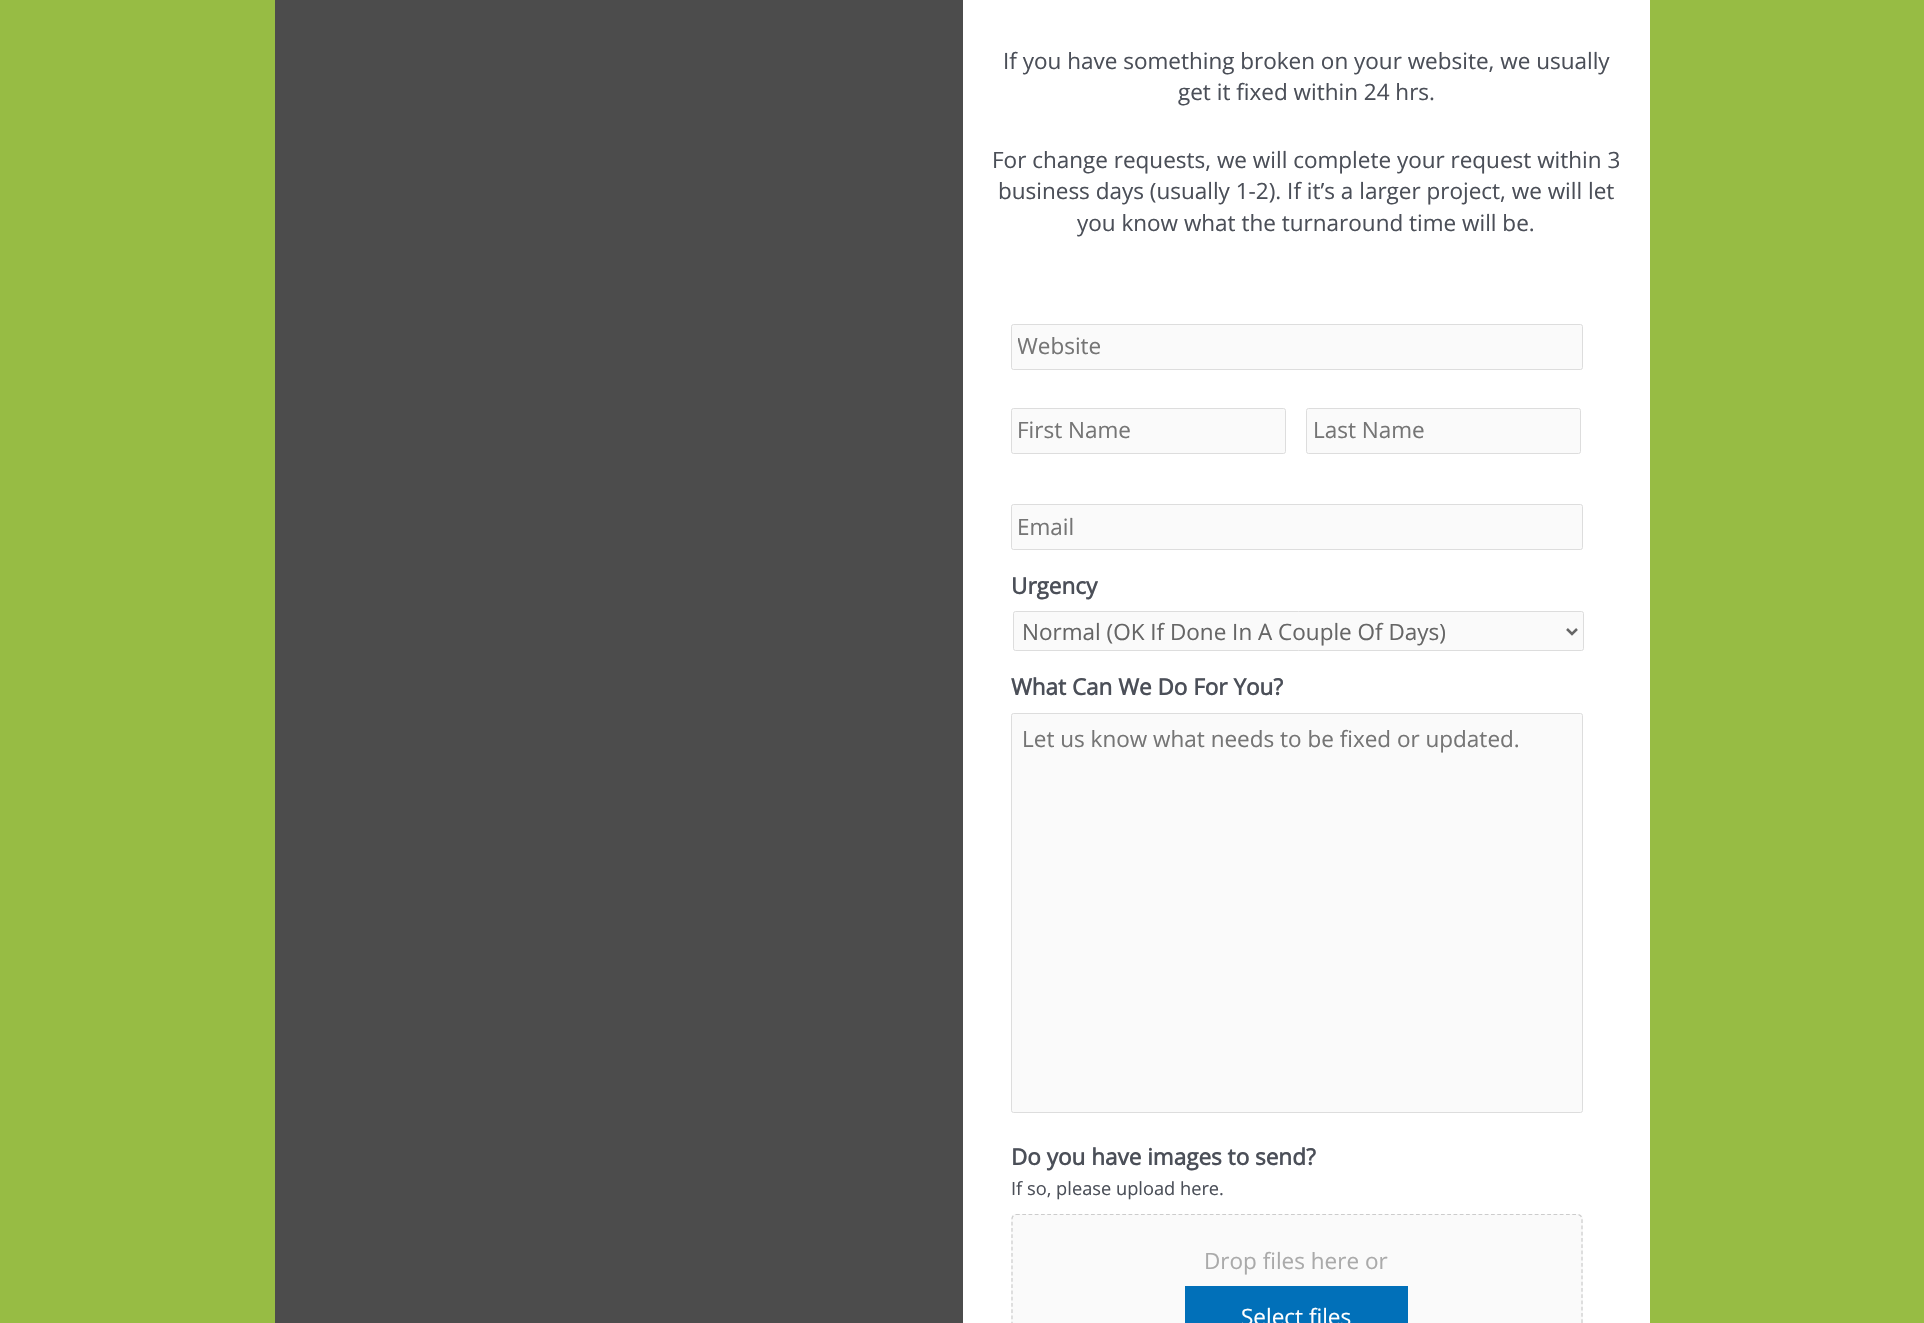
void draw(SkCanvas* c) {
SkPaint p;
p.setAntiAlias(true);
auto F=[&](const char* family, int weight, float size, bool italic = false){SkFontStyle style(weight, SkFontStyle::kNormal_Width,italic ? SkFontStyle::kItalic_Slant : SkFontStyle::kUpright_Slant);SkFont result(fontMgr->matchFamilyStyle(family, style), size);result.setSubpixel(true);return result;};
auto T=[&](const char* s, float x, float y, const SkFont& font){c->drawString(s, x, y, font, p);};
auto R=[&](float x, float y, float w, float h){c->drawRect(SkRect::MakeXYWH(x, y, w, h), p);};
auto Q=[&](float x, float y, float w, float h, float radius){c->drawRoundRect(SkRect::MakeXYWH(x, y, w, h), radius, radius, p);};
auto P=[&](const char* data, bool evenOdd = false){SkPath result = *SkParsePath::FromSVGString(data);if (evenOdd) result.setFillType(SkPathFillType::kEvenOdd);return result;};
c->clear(0xff97bc44);
p.setColor(0xff4c4c4c);
R(275,0,688,1323);
p.setColor(0xffffffff);
R(963,0,687,1323);
auto f1 = F("Open Sans",400,22.5);
p.setColor(0xff4b4f58);
T("If you have something broken on your website, we usually",1003,69,f1);
T("get it fixed within 24 hrs.",1178,100,f1);
T("For change requests, we will complete your request within 3",992,168,f1);
T("business days (usually 1-2). If it’s a larger project, we will let",998,199,f1);
T("you know what the turnaround time will be.",1077,231,f1);
p.setColor(0xfffafafa);
c->drawRoundRect(SkRect::MakeXYWH(1011.5,324.5,571,45),2,2,p);
p.setStroke(true);
p.setStrokeWidth(1);
p.setColor(0xffdddddd);
c->drawRoundRect(SkRect::MakeXYWH(1011.5,324.5,571,45),2,2,p);
c->save();
c->clipRect(SkRect::MakeXYWH(1018,331,558,30));
p.setStroke(false);
p.setColor(0xff757575);
T("Website",1017,354,f1);
c->restore();
p.setColor(0xfffafafa);
c->drawRoundRect(SkRect::MakeXYWH(1011.5,408.5,274,45),2,2,p);
p.setStroke(true);
p.setColor(0xffdddddd);
c->drawRoundRect(SkRect::MakeXYWH(1011.5,408.5,274,45),2,2,p);
p.setStroke(false);
p.setColor(0xff757575);
T("First Name",1017,438,f1);
p.setColor(0xfffafafa);
c->drawRoundRect(SkRect::MakeXYWH(1306.5,408.5,274,45),2,2,p);
p.setStroke(true);
p.setColor(0xffdddddd);
c->drawRoundRect(SkRect::MakeXYWH(1306.5,408.5,274,45),2,2,p);
p.setStroke(false);
p.setColor(0xff757575);
T("Last Name",1313,438,f1);
p.setColor(0xfffafafa);
c->drawRoundRect(SkRect::MakeXYWH(1011.5,504.5,571,45),2,2,p);
p.setStroke(true);
p.setColor(0xffdddddd);
c->drawRoundRect(SkRect::MakeXYWH(1011.5,504.5,571,45),2,2,p);
p.setStroke(false);
p.setColor(0xff757575);
T("Email",1017,535,f1);
auto f2 = F("Open Sans",700,22.5);
p.setColor(0xff4b4f58);
T("Urgency",1011,594,f2);
p.setColor(0xfffafafa);
c->drawRoundRect(SkRect::MakeXYWH(1013.5,611.5,570,39),2,2,p);
p.setStroke(true);
p.setColor(0xffdddddd);
c->drawRoundRect(SkRect::MakeXYWH(1013.5,611.5,570,39),2,2,p);
p.setStrokeWidth(2.5);
p.setColor(0xff666666);
c->drawPath(P("M1567 629l5 5l5-5"),p);
p.setStroke(false);
T("Normal (OK If Done In A Couple Of Days)",1022,640,f1);
p.setColor(0xff4b4f58);
T("What Can We Do For You?",1011,695,f2);
p.setColor(0xfffafafa);
c->drawRoundRect(SkRect::MakeXYWH(1011.5,713.5,571,399),2,2,p);
p.setStroke(true);
p.setStrokeWidth(1);
p.setColor(0xffdddddd);
c->drawRoundRect(SkRect::MakeXYWH(1011.5,713.5,571,399),2,2,p);
p.setStroke(false);
p.setColor(0xff757575);
T("Let us know what needs to be fixed or updated.",1022,747,f1);
p.setColor(0xff4b4f58);
T("Do you have images to send?",1011,1165,f2);
auto f3 = F("Open Sans",400,18.25);
T("If so, please upload here.",1011,1195,f3);
p.setColor(0xfffafafa);
Q(1011,1214,572,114,5);
p.setStroke(true);
p.setStrokeWidth(1.2);
p.setColor(0xffcccccc);
p.setPathEffect(SkDashPathEffect::Make({{3.75f,2.5f}}, 0));
c->drawPath(P("M1016 1214.5h561.5c2.5 0 4.5 2 4.5 4.5v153.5c0 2.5-2 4.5-4.5 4.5h-561.5c-2 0-4-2-4-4.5v-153.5c0-2.5 2-4.5 4-4.5z"),p);
p.setPathEffect(nullptr);
p.setStroke(false);
p.setColor(0xffaaaaaa);
T("Drop files here or",1204,1269,f1);
p.setColor(0xff0170b9);
R(1185,1286,223,37);
p.setColor(0xffffffff);
T("Select files",1241,1325,f1);
}
